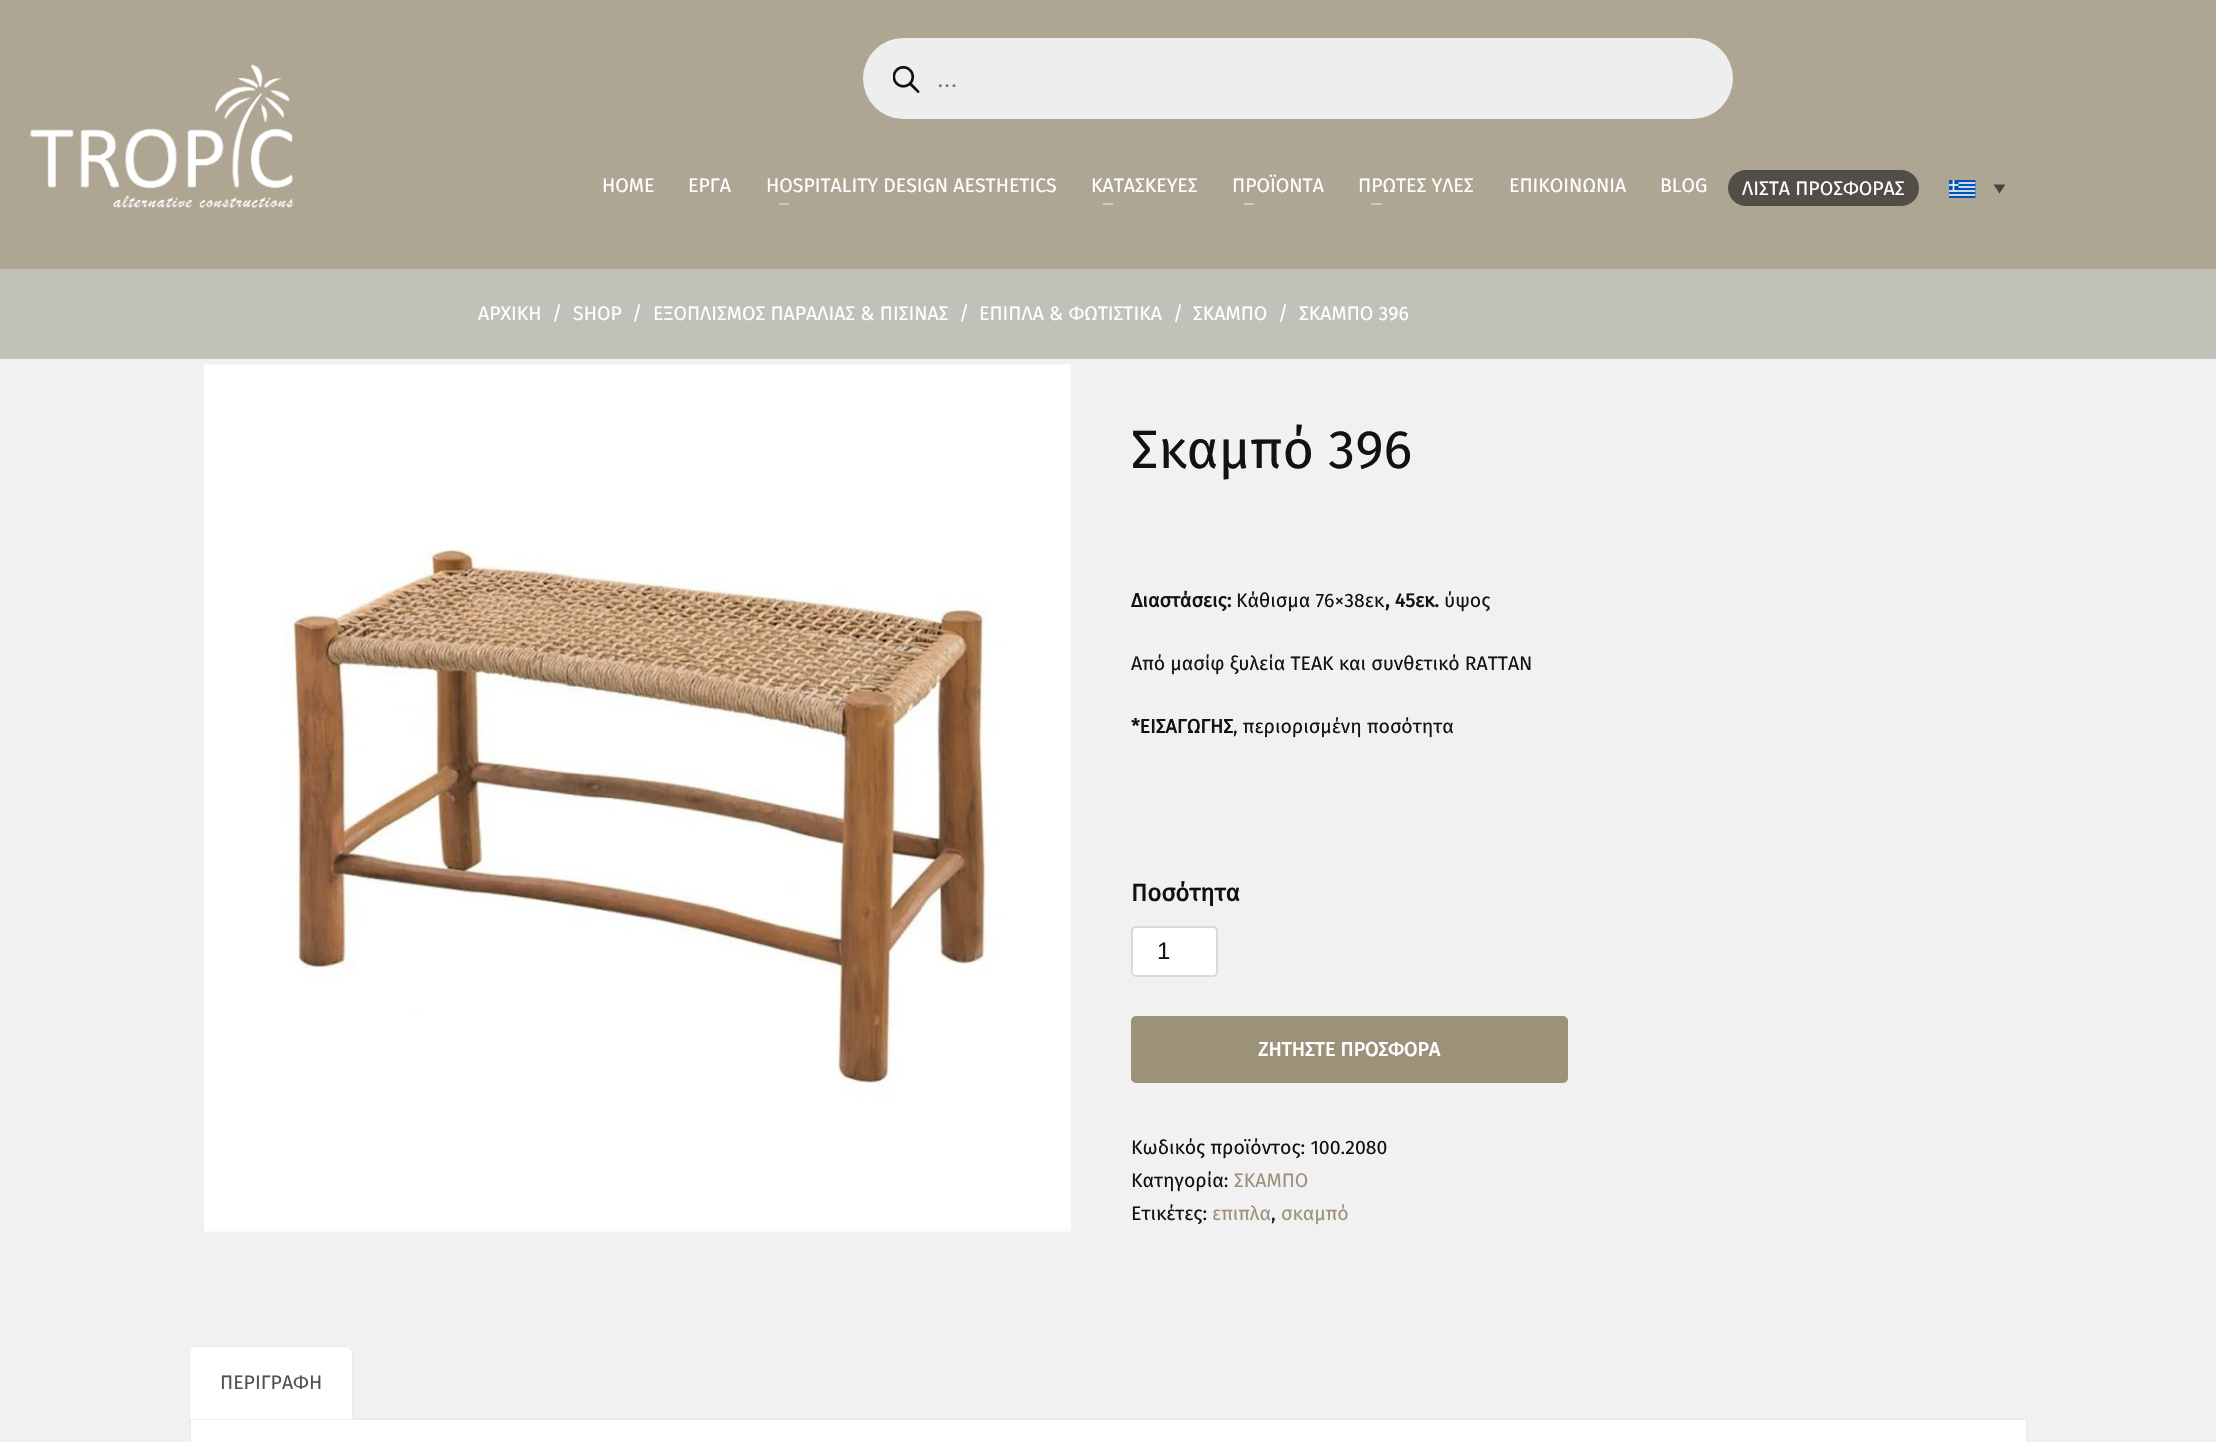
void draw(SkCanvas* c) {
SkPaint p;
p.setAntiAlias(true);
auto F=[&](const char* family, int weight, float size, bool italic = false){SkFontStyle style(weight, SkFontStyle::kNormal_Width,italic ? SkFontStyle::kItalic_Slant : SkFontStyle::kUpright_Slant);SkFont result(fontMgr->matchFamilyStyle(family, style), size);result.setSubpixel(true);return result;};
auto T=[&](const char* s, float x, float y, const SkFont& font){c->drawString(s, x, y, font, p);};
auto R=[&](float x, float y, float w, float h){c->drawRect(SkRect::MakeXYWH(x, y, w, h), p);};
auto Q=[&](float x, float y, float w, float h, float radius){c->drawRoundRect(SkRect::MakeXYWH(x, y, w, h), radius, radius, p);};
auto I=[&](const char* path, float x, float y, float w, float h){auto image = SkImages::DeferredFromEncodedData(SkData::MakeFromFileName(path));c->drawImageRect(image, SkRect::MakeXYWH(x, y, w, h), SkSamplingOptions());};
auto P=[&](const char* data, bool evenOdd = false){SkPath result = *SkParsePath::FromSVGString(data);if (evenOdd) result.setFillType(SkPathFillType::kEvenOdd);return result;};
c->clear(0xfff1f1f1);
p.setColor(0xffaea692);
R(0,0,2216,269);
I("1.png",30,64,264,145);
p.setColor(0xffeeeeee);
Q(863,38,870,81,40.5);
I("2.png",893,66,27,27);
auto f1 = F("Roboto",400,26);
p.setColor(0xff777777);
T("...",937,87,f1);
auto f2 = F("Fira Sans",400,19.5);
p.setColor(0xffffffff);
T("HOME",602,192,f2);
T("ΕΡΓΑ",688,192,f2);
T("HOSPITALITY DESIGN AESTHETICS",766,192,f2);
p.setColor(0xffcecabe);
R(779,203,10,2);
p.setColor(0xffffffff);
T("ΚΑΤΑΣΚΕΥΕΣ",1091,192,f2);
p.setColor(0xffcecabe);
R(1103,203,10,2);
p.setColor(0xffffffff);
T("ΠΡΟΪΟΝΤΑ",1232,192,f2);
p.setColor(0xffcecabe);
R(1244,203,10,2);
p.setColor(0xffffffff);
T("ΠΡΩΤΕΣ ΥΛΕΣ",1358,192,f2);
p.setColor(0xffcecabe);
R(1371,203,11,2);
p.setColor(0xffffffff);
T("ΕΠΙΚΟΙΝΩΝΙΑ",1509,192,f2);
T("BLOG",1660,192,f2);
p.setColor(0xff514e48);
Q(1728,170,191,36,18);
p.setColor(0xffffffff);
T("ΛΙΣΤΑ ΠΡΟΣΦΟΡΑΣ",1742,195,f2);
I("3.png",1949,180,27,18);
p.setColor(0xff444444);
c->drawPath(P("M1993.5 184.5h12l-6 9z"),p);
p.setColor(0xffc1c0b9);
R(0,269,2216,90);
p.setColor(0xffffffff);
T("ΑΡΧΙΚΗ",478,320,f2);
T("/",552,320,f2);
T("SHOP",573,320,f2);
T("/",632,320,f2);
T("ΕΞΟΠΛΙΣΜΟΣ ΠΑΡΑΛΙΑΣ & ΠΙΣΙΝΑΣ",653,320,f2);
T("/",959,320,f2);
T("ΕΠΙΠΛΑ & ΦΩΤΙΣΤΙΚΑ",979,320,f2);
T("/",1173,320,f2);
T("ΣΚΑΜΠΟ",1193,320,f2);
T("/",1278,320,f2);
T("ΣΚΑΜΠΟ 396",1299,320,f2);
I("4.png",204,364,867,868);
auto f3 = F("Fira Sans",400,54);
p.setColor(0xff121212);
T("Σκαμπό 396",1131,468,f3);
auto f4 = F("Fira Sans",700,19.5);
T("Διαστάσεις:",1131,607,f4);
T("Kάθισμα 76×38εκ",1236,607,f2);
T(", 45εκ.",1385,607,f4);
T("ύψος",1444,607,f2);
T("Από μασίφ ξυλεία TEAK και συνθετικό RATTAN",1131,670,f2);
T("*ΕΙΣΑΓΩΓΗΣ",1131,733,f4);
T(", περιορισμένη ποσότητα",1233,733,f2);
auto f5 = F("Fira Sans",700,24);
T("Ποσότητα",1131,901,f5);
p.setColor(0xffffffff);
c->drawRoundRect(SkRect::MakeXYWH(1132,927,85,49),4,4,p);
p.setStroke(true);
p.setStrokeWidth(2);
p.setColor(0xffd9d9d9);
c->drawRoundRect(SkRect::MakeXYWH(1132,927,85,49),4,4,p);
auto f6 = F("Liberation Sans",400,24);
p.setStroke(false);
p.setColor(0xff121212);
T("1",1157,959,f6);
p.setColor(0xff9c9279);
c->drawRoundRect(SkRect::MakeXYWH(1132,1017,435,65),4,4,p);
p.setStroke(true);
c->drawRoundRect(SkRect::MakeXYWH(1132,1017,435,65),4,4,p);
p.setStroke(false);
p.setColor(0xffffffff);
T("ΖΗΤΗΣΤΕ ΠΡΟΣΦΟΡΑ",1258,1056,f4);
p.setColor(0xff121212);
T("Κωδικός προϊόντος: 100.2080",1131,1154,f2);
T("Κατηγορία:",1131,1187,f2);
p.setColor(0xff9c9279);
T("ΣΚΑΜΠΟ",1234,1187,f2);
p.setColor(0xff121212);
T("Ετικέτες:",1131,1220,f2);
p.setColor(0xff9c9279);
T("επιπλα",1212,1220,f2);
p.setColor(0xff121212);
T(",",1271,1220,f2);
p.setColor(0xff9c9279);
T("σκαμπό",1281,1220,f2);
p.setColor(0xffffffff);
c->drawRect(SkRect::MakeXYWH(190,1419,1837,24),p);
p.setStroke(true);
p.setColor(0xffececec);
c->drawRect(SkRect::MakeXYWH(190,1419,1837,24),p);
p.setStroke(false);
p.setColor(0xffffffff);
c->drawPath(P("M195 1346h153c3.5 0 6 2.5 6 6v67h-165v-67c0-3.5 2.5-6 6-6z"),p);
p.setColor(0xffececec);
c->drawPath(P("M196 1346h150c5 0 8 3 8 7v66h-165v-66c0-4 3-7 7-7zm0 1h150c4 0 6 3 6 6v66h-162v-66c0-3 3-6 6-6z",true),p);
p.setColor(0xff515151);
T("ΠΕΡΙΓΡΑΦΗ",220,1389,f2);
}
